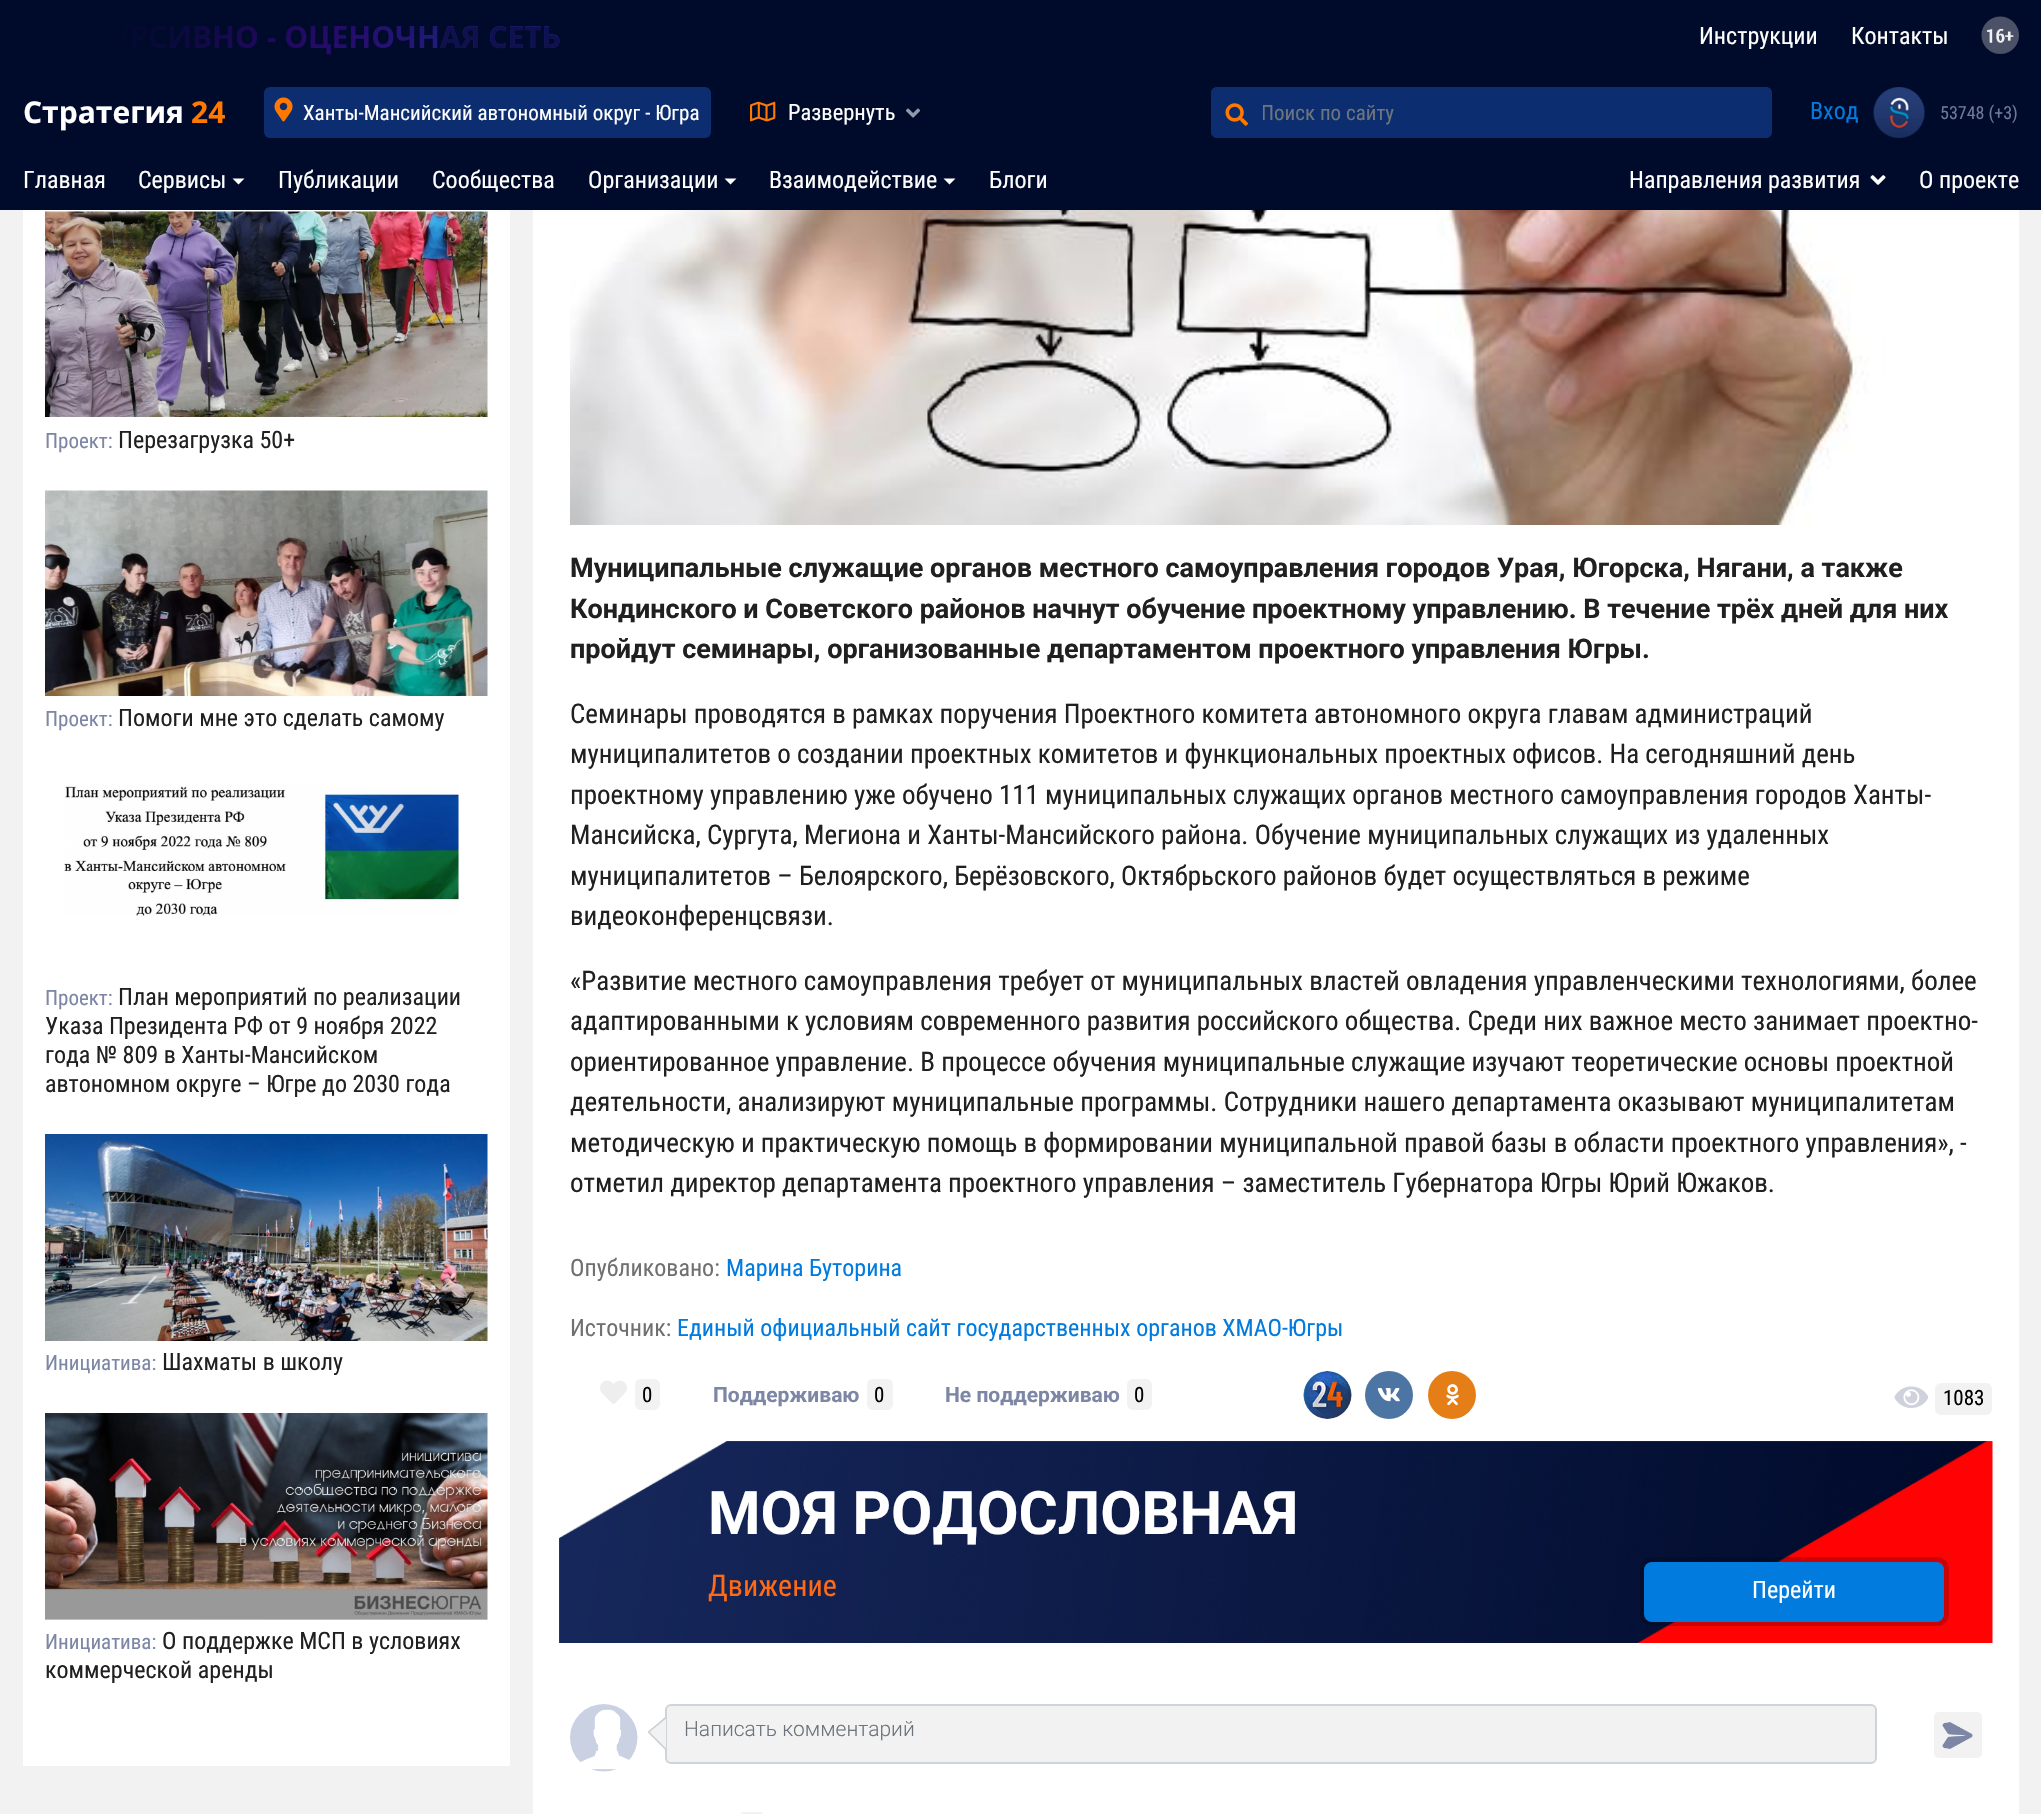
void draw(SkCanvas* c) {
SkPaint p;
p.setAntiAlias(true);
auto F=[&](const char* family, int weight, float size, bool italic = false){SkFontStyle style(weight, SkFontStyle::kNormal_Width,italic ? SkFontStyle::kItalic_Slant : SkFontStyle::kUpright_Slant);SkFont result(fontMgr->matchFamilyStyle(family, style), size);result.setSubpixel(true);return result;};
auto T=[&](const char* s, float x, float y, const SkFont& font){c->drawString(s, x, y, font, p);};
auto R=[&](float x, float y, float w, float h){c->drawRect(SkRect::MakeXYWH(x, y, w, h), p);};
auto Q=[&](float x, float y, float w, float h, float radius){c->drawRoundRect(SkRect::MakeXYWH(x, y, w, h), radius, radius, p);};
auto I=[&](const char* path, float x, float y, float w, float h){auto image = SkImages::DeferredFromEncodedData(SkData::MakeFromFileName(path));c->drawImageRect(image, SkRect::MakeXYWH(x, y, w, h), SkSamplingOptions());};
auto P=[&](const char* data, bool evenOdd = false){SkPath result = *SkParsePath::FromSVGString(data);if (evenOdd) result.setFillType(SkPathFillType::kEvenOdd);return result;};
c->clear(0xfff2f2f2);
p.setColor(0xff000a2a);
R(0,0,2041,150);
I("1.png",121,26,439,29);
auto f1 = F("Open Sans",700,30);
p.setColor(0xff11104f);
T("АЯ СЕТЬ",440,48,f1);
auto f2 = F("Roboto Condensed",400,24);
p.setColor(0xffffffff);
T("Инструкции",1699,44,f2);
T("Контакты",1851,44,f2);
I("2.png",1981,16,38,38);
T("Стратегия",23,123,f1);
p.setColor(0xffff7800);
T("24",191,123,f1);
p.setColor(0xff0c2d70);
Q(264,87,447,51,6);
I("3.png",274,97,19,25);
auto f3 = F("Roboto Condensed",400,21);
p.setColor(0xffffffff);
T("Ханты-Мансийский автономный округ - Югра",303,120,f3);
I("4.png",750,101,26,21);
auto f4 = F("Roboto Condensed",400,22.5);
T("Развернуть",788,120,f4);
I("5.png",906,108,14,10);
p.setColor(0xff0c2d70);
c->drawPath(P("M1262 87h504c3.5 0 6 2.5 6 6v39c0 3.5-2.5 6-6 6h-504z"),p);
p.setColor(0xff6c757d);
T("Поиск по сайту",1261,120,f3);
p.setColor(0xff0c2d70);
c->drawPath(P("M1217 87h46v51h-46c-3.5 0-6-2.5-6-6v-39c0-3.5 2.5-6 6-6z"),p);
I("6.png",1225,103,23,23);
p.setColor(0xff017bde);
T("Вход",1810,119,f2);
I("7.png",1873,87,52,51);
auto f5 = F("Roboto Condensed",400,18);
p.setColor(0xff6f7897);
T("53748 (+3)",1940,119,f5);
p.setColor(0xff000a2a);
R(0,150,2041,60);
p.setColor(0xffffffff);
T("Главная",23,188,f2);
T("Сервисы",138,188,f2);
c->drawPath(P("M232.5 178.5h12l-6 6z"),p);
T("Публикации",278,188,f2);
T("Сообщества",432,188,f2);
T("Организации",588,188,f2);
c->drawPath(P("M724.5 178.5h12l-6 6z"),p);
T("Взаимодействие",769,188,f2);
c->drawPath(P("M943.5 178.5h12l-6 6z"),p);
T("Блоги",989,188,f2);
T("Направления развития",1629,188,f2);
I("8.png",1870,175,16,10);
T("О проекте",1919,188,f2);
R(23,210,487,1556);
I("9.png",45,211,443,206);
p.setColor(0xff7d86a4);
T("Проект:",45,448,f3);
p.setColor(0xff202020);
T("Перезагрузка 50+",118,448,f2);
I("10.png",45,490,443,206);
p.setColor(0xff7d86a4);
T("Проект:",45,726,f3);
p.setColor(0xff202020);
T("Помоги мне это сделать самому",118,726,f2);
I("11.png",64,785,396,131);
p.setColor(0xff7d86a4);
T("Проект:",45,1005,f3);
p.setColor(0xff202020);
T("План мероприятий по реализации",118,1005,f2);
T("Указа Президента РФ от 9 ноября 2022",45,1034,f2);
T("года № 809 в Ханты-Мансийском",45,1063,f2);
T("автономном округе – Югре до 2030 года",45,1092,f2);
I("12.png",45,1134,443,207);
p.setColor(0xff7d86a4);
T("Инициатива:",45,1370,f3);
p.setColor(0xff202020);
T("Шахматы в школу",162,1370,f2);
I("13.png",45,1413,443,207);
p.setColor(0xff7d86a4);
T("Инициатива:",45,1649,f3);
p.setColor(0xff202020);
T("О поддержке МСП в условиях",162,1649,f2);
T("коммерческой аренды",45,1678,f2);
p.setColor(0xffffffff);
R(533,210,1486,1604);
I("14.png",570,210,1318,315);
auto f6 = F("Roboto",700,27);
p.setColor(0xff202020);
T("Муниципальные служащие органов местного самоуправления городов Урая, Югорска, Нягани, а также",570,577,f6);
T("Кондинского и Советского районов начнут обучение проектному управлению. В течение трёх дней для них",570,618,f6);
T("пройдут семинары, организованные департаментом проектного управления Югры.",570,658,f6);
auto f7 = F("Roboto Condensed",400,27);
T("Семинары проводятся в рамках поручения Проектного комитета автономного округа главам администраций",570,723,f7);
T("муниципалитетов о создании проектных комитетов и функциональных проектных офисов. На сегодняшний день",570,763,f7);
T("проектному управлению уже обучено 111 муниципальных служащих органов местного самоуправления городов Ханты-",570,804,f7);
T("Мансийска, Сургута, Мегиона и Ханты-Мансийского района. Обучение муниципальных служащих из удаленных",570,844,f7);
T("муниципалитетов – Белоярского, Берёзовского, Октябрьского районов будет осуществляться в режиме",570,885,f7);
T("видеоконференцсвязи.",570,925,f7);
T("«Развитие местного самоуправления требует от муниципальных властей овладения управленческими технологиями, более",570,990,f7);
T("адаптированными к условиям современного развития российского общества. Среди них важное место занимает проектно-",570,1030,f7);
T("ориентированное управление. В процессе обучения муниципальные служащие изучают теоретические основы проектной",570,1071,f7);
T("деятельности, анализируют муниципальные программы. Сотрудники нашего департамента оказывают муниципалитетам",570,1111,f7);
T("методическую и практическую помощь в формировании муниципальной правой базы в области проектного управления», -",570,1152,f7);
T("отметил директор департамента проектного управления – заместитель Губернатора Югры Юрий Южаков.",570,1192,f7);
p.setColor(0xff707070);
T("Опубликовано:",570,1276,f2);
p.setColor(0xff017bde);
T("Марина Буторина",726,1276,f2);
p.setColor(0xff707070);
T("Источник:",570,1336,f2);
p.setColor(0xff017bde);
T("Единый официальный сайт государственных органов ХМАО-Югры",677,1336,f2);
I("15.png",600,1380,27,24);
p.setColor(0xfff2f2f2);
Q(635,1379,25,31,6);
p.setColor(0xff000000);
T("0",642,1402,f3);
auto f8 = F("Roboto",700,21);
p.setColor(0xff7d86a4);
T("Поддерживаю",713,1402,f8);
p.setColor(0xfff2f2f2);
Q(867,1379,26,31,6);
p.setColor(0xff000000);
T("0",874,1402,f3);
p.setColor(0xff7d86a4);
T("Не поддерживаю",945,1402,f8);
p.setColor(0xfff2f2f2);
Q(1127,1379,25,31,6);
p.setColor(0xff000000);
T("0",1134,1402,f3);
I("16.png",1303,1371,49,48);
p.setColor(0xff4d75a3);
c->drawCircle(1389,1395,24,p);
I("17.png",1377,1388,23,14);
p.setColor(0xffe67e17);
c->drawCircle(1452,1395,24,p);
I("18.png",1446,1384,13,22);
I("19.png",1894,1386,35,22);
p.setColor(0xfff2f2f2);
Q(1935,1383,57,32,6);
p.setColor(0xff000000);
T("1083",1943,1405,f3);
I("20.png",559,1441,1434,202);
auto f9 = F("Roboto",700,60);
p.setColor(0xffffffff);
T("МОЯ РОДОСЛОВНАЯ",708,1534,f9);
auto f10 = F("Roboto Condensed",400,30);
p.setColor(0xffff6a13);
T("Движение",708,1596,f10);
p.setStroke(true);
p.setStrokeWidth(5);
p.setColor(0x33000000);
c->drawRoundRect(SkRect::MakeXYWH(1642.5,1559.5,304,64),9.5,9.5,p);
p.setStroke(false);
p.setColor(0xff017bde);
Q(1644,1562,300,60,8);
p.setColor(0xffffffff);
T("Перейти",1752,1598,f2);
I("21.png",570,1704,68,68);
p.setColor(0xfff2f2f2);
c->drawRoundRect(SkRect::MakeXYWH(666,1705,1210,58),5,5,p);
p.setStroke(true);
p.setStrokeWidth(2);
p.setColor(0xffced4da);
c->drawRoundRect(SkRect::MakeXYWH(666,1705,1210,58),5,5,p);
p.setStroke(false);
p.setColor(0xfff2f2f2);
c->drawPath(P("M666 1717.5v32l-17.5-17.5z"),p);
c->save();
c->clipPath(P("M648 1750v-33h18v33z"),true);
p.setStroke(true);
p.setStrokeWidth(1.5);
p.setColor(0xffcccccc);
c->drawPath(P("M666.5 1750l-18-18l18-15"),p);
c->restore();
auto f11 = F("Roboto",300,21);
p.setStroke(false);
p.setColor(0xff6c757d);
T("Написать комментарий",684,1736,f11);
p.setColor(0xfff2f2f2);
Q(1934,1712,48,46,5);
I("22.png",1942,1722,31,27);
Q(740,1812,24,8,6);
}
